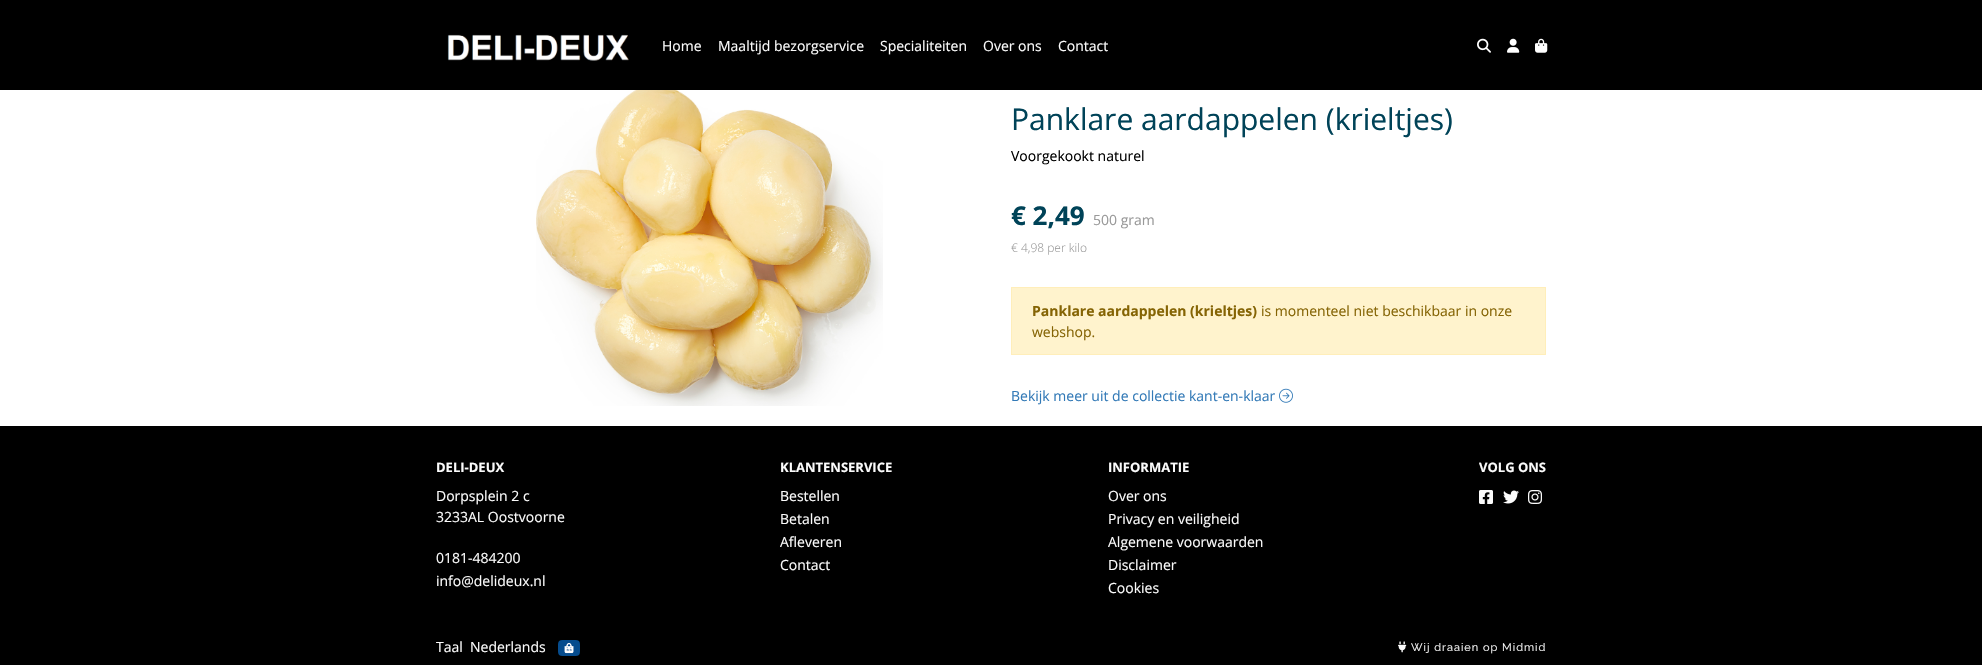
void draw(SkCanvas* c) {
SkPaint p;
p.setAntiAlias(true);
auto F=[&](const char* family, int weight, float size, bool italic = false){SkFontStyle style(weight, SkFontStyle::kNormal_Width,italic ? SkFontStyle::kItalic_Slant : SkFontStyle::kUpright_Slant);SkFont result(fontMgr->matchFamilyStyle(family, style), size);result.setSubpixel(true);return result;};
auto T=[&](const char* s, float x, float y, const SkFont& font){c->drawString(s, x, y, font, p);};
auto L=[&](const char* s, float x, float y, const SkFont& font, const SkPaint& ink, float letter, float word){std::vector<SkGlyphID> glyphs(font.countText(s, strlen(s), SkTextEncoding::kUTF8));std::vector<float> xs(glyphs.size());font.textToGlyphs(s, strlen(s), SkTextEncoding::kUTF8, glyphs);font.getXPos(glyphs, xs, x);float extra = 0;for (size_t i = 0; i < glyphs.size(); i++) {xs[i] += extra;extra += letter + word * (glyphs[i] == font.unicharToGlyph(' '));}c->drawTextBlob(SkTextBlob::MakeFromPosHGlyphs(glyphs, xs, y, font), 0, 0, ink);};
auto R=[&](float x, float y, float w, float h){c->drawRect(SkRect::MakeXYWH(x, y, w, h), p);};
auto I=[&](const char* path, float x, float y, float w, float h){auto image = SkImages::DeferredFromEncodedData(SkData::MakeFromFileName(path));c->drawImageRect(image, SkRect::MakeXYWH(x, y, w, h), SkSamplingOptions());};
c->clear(0xffffffff);
p.setColor(0xff000000);
R(0,0,1982,90);
I("1.png",447,34,182,27);
auto f1 = F("Open Sans",400,14);
p.setColor(0xfffbfbfb);
T("Home",662,51,f1);
T("Maaltijd bezorgservice",718,51,f1);
T("Specialiteiten",880,51,f1);
T("Over ons",983,51,f1);
T("Contact",1058,51,f1);
I("2.png",1477,38,14,15);
I("3.png",1507,38,13,15);
I("4.png",1535,38,13,15);
I("5.png",536,90,347,316);
auto f2 = F("Open Sans",400,30);
p.setColor(0xff004358);
T("Panklare aardappelen (krieltjes)",1011,130,f2);
p.setColor(0xff000000);
T("Voorgekookt naturel",1011,161,f1);
auto f3 = F("Open Sans",700,26);
p.setColor(0xff004358);
T("€ 2,49",1011,225,f3);
p.setColor(0xff999999);
T("500 gram",1093,225,f1);
auto f4 = F("Open Sans",300,12);
T("€ 4,98 per kilo",1011,252,f4);
p.setColor(0xfffff3cd);
c->drawRect(SkRect::MakeXYWH(1011.5,287.5,534,67),p);
p.setStroke(true);
p.setStrokeWidth(1);
p.setColor(0xffffeeba);
c->drawRect(SkRect::MakeXYWH(1011.5,287.5,534,67),p);
auto f5 = F("Open Sans",700,14);
p.setStroke(false);
p.setColor(0xff856404);
T("Panklare aardappelen (krieltjes)",1032,316,f5);
T("is momenteel niet beschikbaar in onze",1261,316,f1);
T("webshop.",1032,337,f1);
p.setColor(0xff337ab7);
T("Bekijk meer uit de collectie kant-en-klaar",1011,401,f1);
I("6.png",1279,388,14,15);
p.setColor(0xff000000);
R(0,426,1982,239);
auto f6 = F("Open Sans",700,13);
p.setColor(0xfffbfbfb);
T("DELI-DEUX",436,472,f6);
T("Dorpsplein 2 c",436,501,f1);
T("3233AL Oostvoorne",436,522,f1);
T("0181-484200",436,563,f1);
T("info@delideux.nl",436,586,f1);
T("KLANTENSERVICE",780,472,f6);
T("Bestellen",780,501,f1);
T("Betalen",780,524,f1);
T("Afleveren",780,547,f1);
T("Contact",780,570,f1);
T("INFORMATIE",1108,472,f6);
T("Over ons",1108,501,f1);
T("Privacy en veiligheid",1108,524,f1);
T("Algemene voorwaarden",1108,547,f1);
T("Disclaimer",1108,570,f1);
T("Cookies",1108,593,f1);
T("VOLG ONS",1479,472,f6);
I("7.png",1479,490,14,14);
I("8.png",1503,490,16,14);
I("9.png",1528,490,14,14);
T("Taal",436,652,f1);
T("Nederlands",470,652,f1);
I("10.png",558,640,22,16);
I("11.png",1398,641,9,12);
auto f7 = F("Raleway",400,11);
L("Wij draaien op Midmid",1411,651,f7,p,1,0);
}
